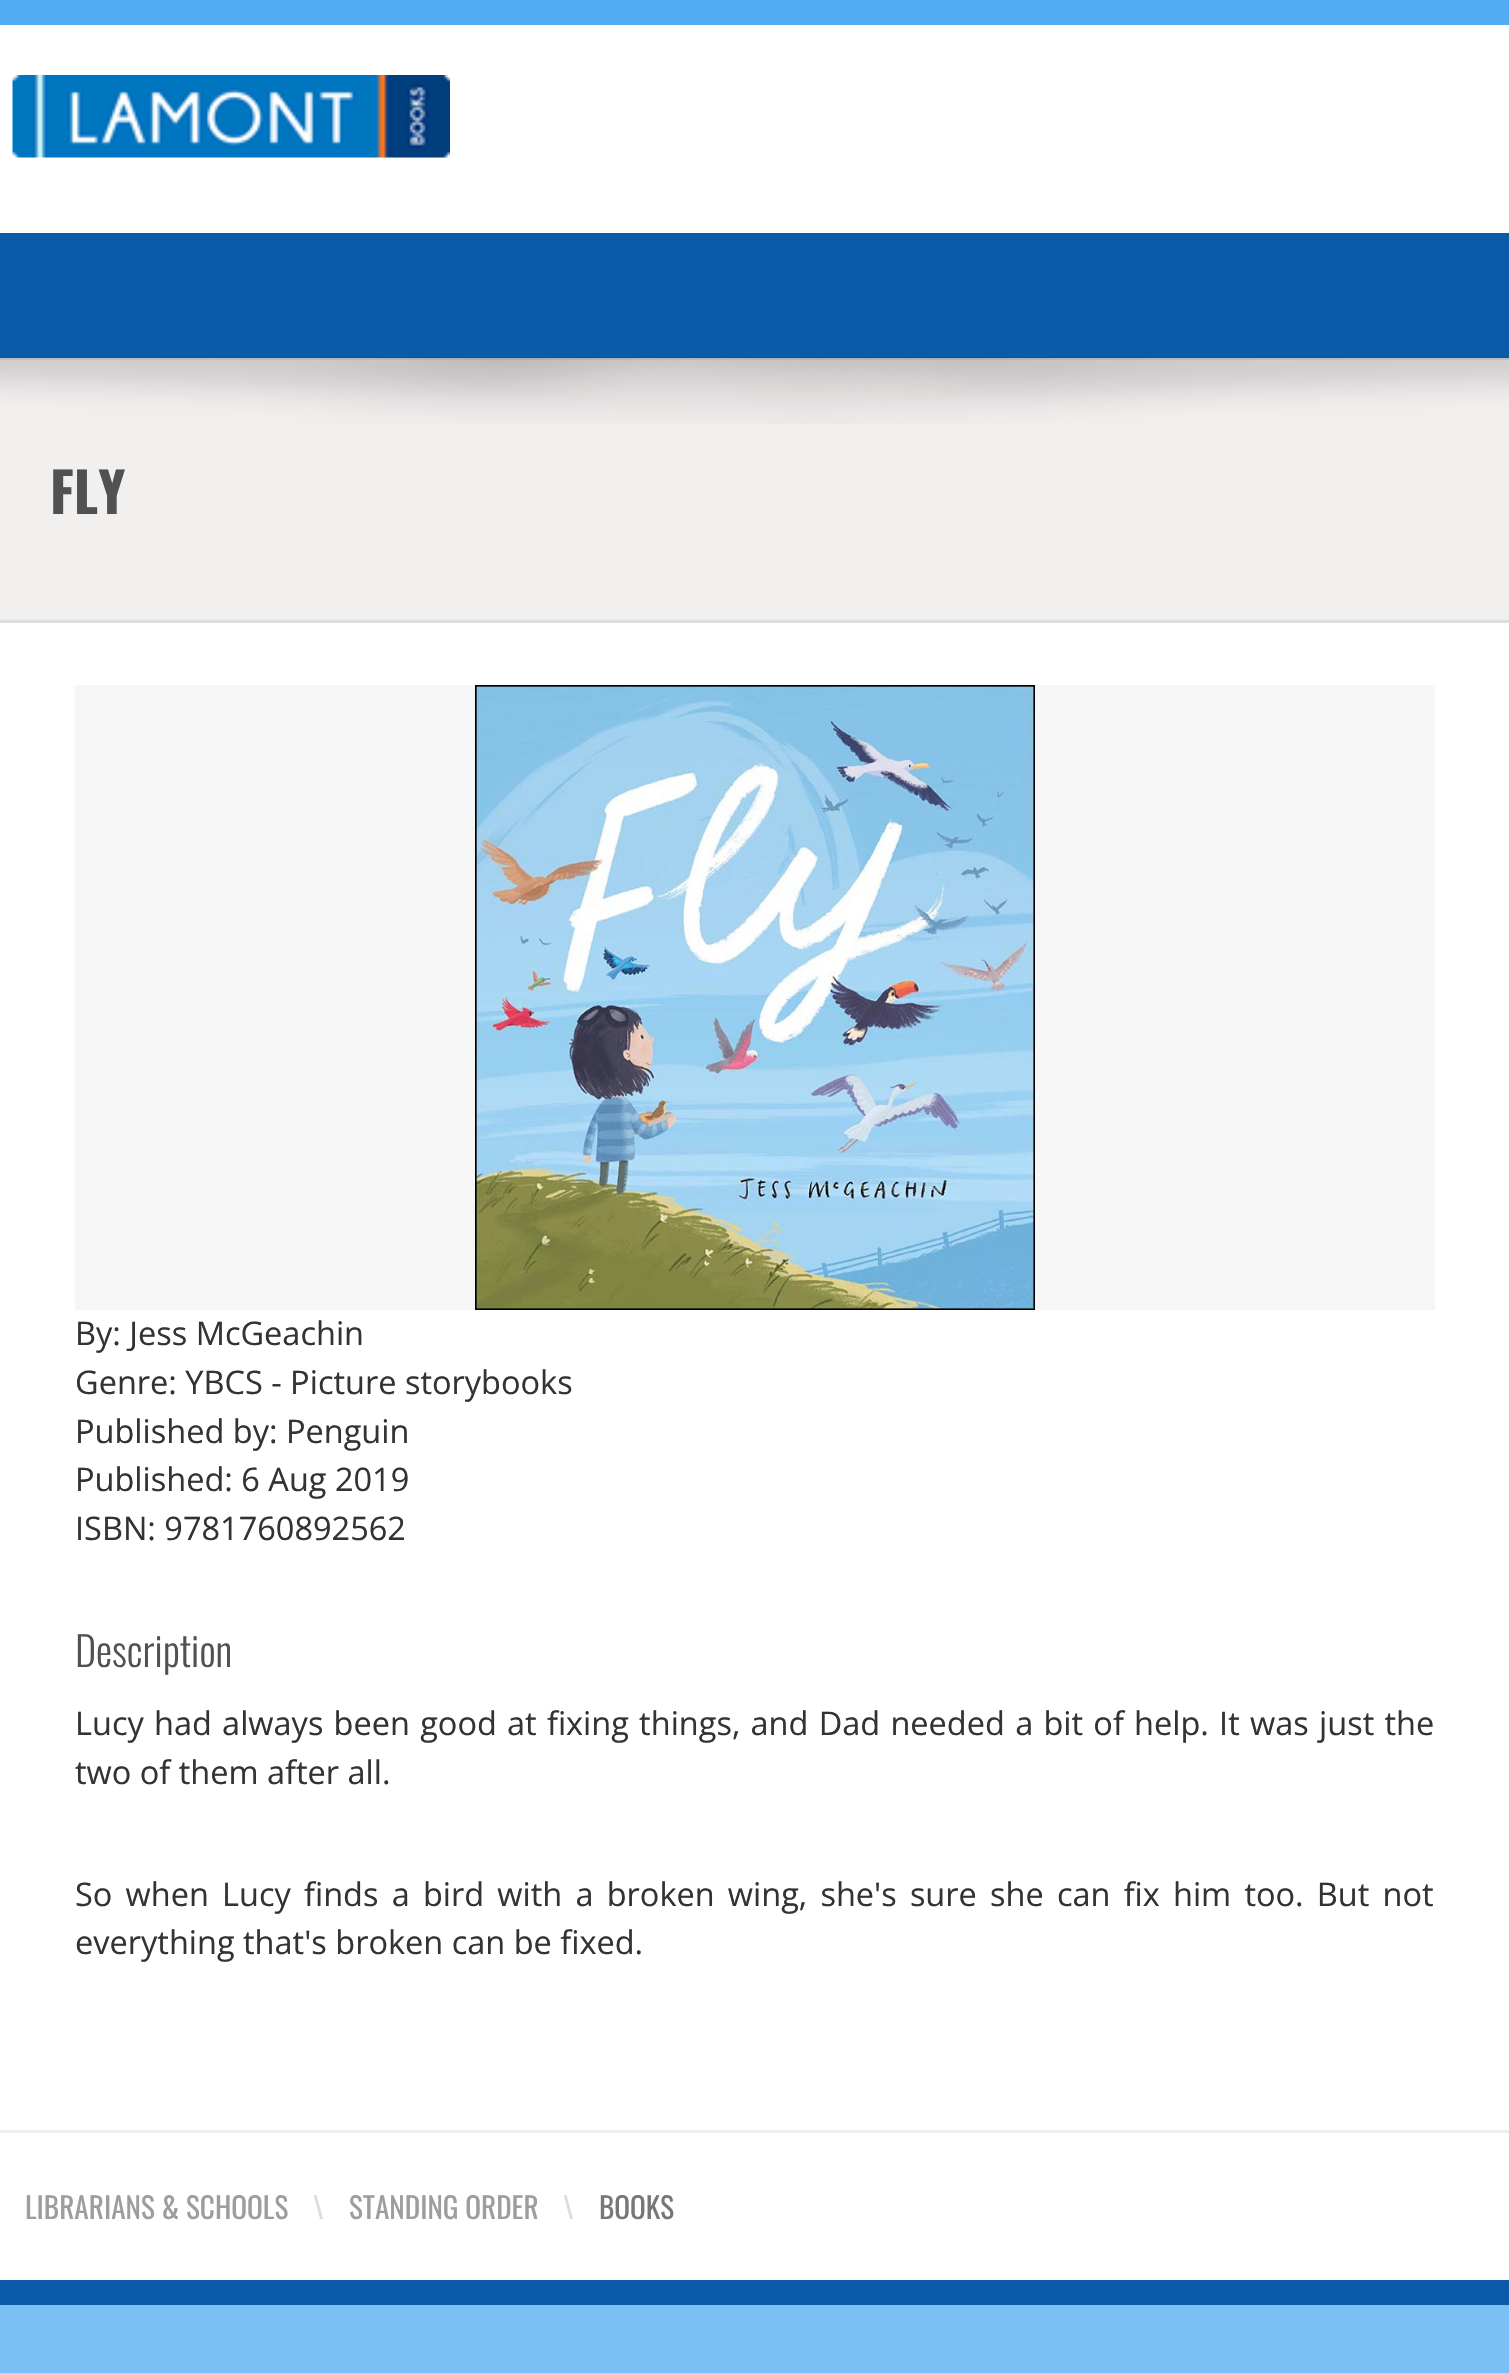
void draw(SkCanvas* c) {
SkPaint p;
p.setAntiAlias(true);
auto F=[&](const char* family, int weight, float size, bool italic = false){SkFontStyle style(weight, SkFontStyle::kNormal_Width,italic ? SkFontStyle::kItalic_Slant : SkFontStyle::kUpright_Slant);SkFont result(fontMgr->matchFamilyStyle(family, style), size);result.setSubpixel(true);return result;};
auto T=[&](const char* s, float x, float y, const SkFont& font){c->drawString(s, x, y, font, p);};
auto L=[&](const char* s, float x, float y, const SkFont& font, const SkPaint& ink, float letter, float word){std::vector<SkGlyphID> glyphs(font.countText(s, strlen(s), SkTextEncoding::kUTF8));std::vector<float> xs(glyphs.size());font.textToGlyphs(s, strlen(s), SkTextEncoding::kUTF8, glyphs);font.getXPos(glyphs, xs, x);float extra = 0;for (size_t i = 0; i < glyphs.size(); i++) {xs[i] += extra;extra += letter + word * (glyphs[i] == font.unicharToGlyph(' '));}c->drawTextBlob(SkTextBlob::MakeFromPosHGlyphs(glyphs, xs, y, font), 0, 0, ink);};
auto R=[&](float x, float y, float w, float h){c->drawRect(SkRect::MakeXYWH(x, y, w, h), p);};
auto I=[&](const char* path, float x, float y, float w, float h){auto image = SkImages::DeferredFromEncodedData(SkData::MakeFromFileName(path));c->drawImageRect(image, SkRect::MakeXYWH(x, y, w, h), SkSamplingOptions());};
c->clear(0xffffffff);
p.setColor(0xff50abf2);
R(0,0,1509,25);
p.setColor(0xffdddddd);
R(0,358,1509,2);
I("1.png",12,75,438,83);
p.setColor(0xff0b5ba8);
R(0,233,1509,125);
p.setColor(0xfff2efef);
R(0,360,1509,260);
p.setColor(0xffdddddd);
R(0,620,1509,3);
I("2.png",0,357,1509,67);
auto f1 = F("Oswald",700,55);
p.setColor(0xff515151);
T("FLY",50,514,f1);
p.setColor(0xfff6f6f6);
R(75,685,1360,625);
I("3.png",475,685,560,625);
auto f2 = F("Open Sans",400,32.5);
p.setColor(0xff333333);
T("By: Jess McGeachin",75,1345,f2);
T("Genre: YBCS - Picture storybooks",75,1394,f2);
T("Published by: Penguin",75,1443,f2);
T("Published: 6 Aug 2019",75,1491,f2);
T("ISBN: 9781760892562",75,1540,f2);
auto f3 = F("Oswald",300,40.5);
p.setColor(0xff515151);
T("Description",75,1667,f3);
p.setColor(0xff333333);
L("Lucy had always been good at fixing things, and Dad needed a bit of help. It was just the",75,1735,f2,p,0,1.8);
T("two of them after all.",75,1784,f2);
L("So when Lucy finds a bird with a broken wing, she's sure she can fix him too. But not",75,1906,f2,p,0,4.75);
T("everything that's broken can be fixed.",75,1954,f2);
p.setColor(0xffeeeeee);
R(0,2130,1509,3);
auto f4 = F("Oswald",400,29.25);
p.setColor(0xff9d9d9d);
T("LIBRARIANS & SCHOOLS",25,2219,f4);
p.setColor(0xffdddddd);
T("\\",313,2219,f4);
p.setColor(0xff9d9d9d);
T("STANDING ORDER",349,2219,f4);
p.setColor(0xffdddddd);
T("\\",563,2219,f4);
p.setColor(0xff777777);
T("BOOKS",599,2219,f4);
p.setColor(0xff7ac0f5);
R(0,2305,1509,68);
p.setColor(0xff0b5ba8);
R(0,2280,1509,25);
}
